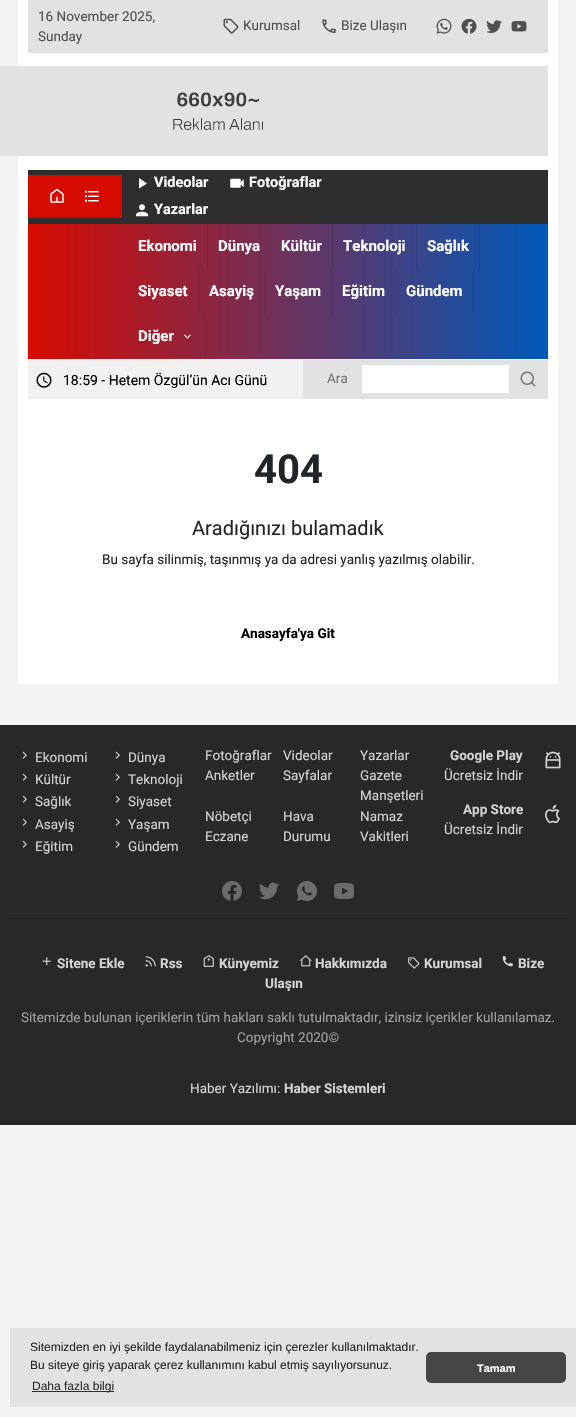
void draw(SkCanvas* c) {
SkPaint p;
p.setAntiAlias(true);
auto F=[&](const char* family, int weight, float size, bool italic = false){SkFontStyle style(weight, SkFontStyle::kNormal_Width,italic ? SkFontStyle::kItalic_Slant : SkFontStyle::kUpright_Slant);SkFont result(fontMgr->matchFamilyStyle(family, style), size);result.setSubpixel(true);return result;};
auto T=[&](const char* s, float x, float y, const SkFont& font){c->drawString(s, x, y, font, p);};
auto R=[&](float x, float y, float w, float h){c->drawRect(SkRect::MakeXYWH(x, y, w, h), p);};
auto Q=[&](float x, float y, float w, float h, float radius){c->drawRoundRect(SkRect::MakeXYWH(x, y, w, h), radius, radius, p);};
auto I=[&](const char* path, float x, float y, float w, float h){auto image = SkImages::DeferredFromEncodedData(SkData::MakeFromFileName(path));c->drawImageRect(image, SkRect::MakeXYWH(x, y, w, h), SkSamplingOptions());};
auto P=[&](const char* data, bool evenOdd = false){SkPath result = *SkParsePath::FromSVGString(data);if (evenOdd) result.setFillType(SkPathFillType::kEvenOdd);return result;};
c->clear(0xfff4f4f4);
p.setColor(0xffffffff);
R(18,0,540,684);
p.setColor(0xffe2e2e2);
R(28,0,520,53);
auto f1 = F("Roboto",400,13.5);
p.setColor(0xff505050);
T("16 November 2025,",38,21,f1);
T("Sunday",38,41,f1);
I("1.png",223,18,16,16);
T("Kurumsal",243,30,f1);
I("2.png",322,19,14,14);
T("Bize Ulaşın",341,30,f1);
I("3.png",436,18,16,16);
I("4.png",461,18,16,16);
I("5.png",486,20,16,13);
I("6.png",511,21,16,11);
I("7.png",0,66,548,90);
p.setColor(0xff2e2e2e);
R(28,170,520,54);
p.setColor(0xffd70a00);
R(28,175,94,43);
I("8.png",50,188,14,15);
I("9.png",84,190,15,12);
p.setColor(0xffffffff);
c->drawPath(P("M139 178v10.5l8-5z"),p);
auto f2 = F("Roboto",700,14.5);
T("Videolar",154,187,f2);
I("10.png",230,178,14,10);
T("Fotoğraflar",249,187,f2);
I("11.png",136,204,12,13);
T("Yazarlar",154,214,f2);
{
const SkColor colors[] = {0xffd70a00,0xff0059ba};
const float stops[] = {0,1};
const SkPoint ends[] = {{28,292}, {548,292}};
p.setShader(SkGradientShader::MakeLinear(ends, colors, stops, 2, SkTileMode::kClamp));
p.setAlpha(255);
}
R(28,224,520,135);
p.setShader(nullptr);
p.setColor(0xff7f213a);
R(207,224,1,45);
auto f3 = F("Roboto",700,15);
p.setColor(0xffffffff);
T("Ekonomi",138,251,f3);
p.setColor(0xff682a4e);
R(270,224,1,45);
p.setColor(0xffffffff);
T("Dünya",218,251,f3);
p.setColor(0xff503262);
R(332,224,1,45);
p.setColor(0xffffffff);
T("Kültür",281,251,f3);
p.setColor(0xff313e7d);
R(416,224,1,45);
p.setColor(0xffffffff);
T("Teknoloji",343,251,f3);
p.setColor(0xff194791);
R(479,224,1,45);
p.setColor(0xffffffff);
T("Sağlık",427,251,f3);
p.setColor(0xff832037);
R(198,269,1,45);
p.setColor(0xffffffff);
T("Siyaset",138,296,f3);
p.setColor(0xff69294d);
R(264,269,1,45);
p.setColor(0xffffffff);
T("Asayiş",209,296,f3);
p.setColor(0xff513262);
R(331,269,1,45);
p.setColor(0xffffffff);
T("Yaşam",275,296,f3);
p.setColor(0xff393b76);
R(395,269,1,45);
p.setColor(0xffffffff);
T("Eğitim",342,296,f3);
p.setColor(0xff1c468f);
R(473,269,1,45);
p.setColor(0xffffffff);
T("Gündem",406,296,f3);
p.setColor(0xff802139);
R(204,314,1,45);
p.setColor(0xffffffff);
T("Diğer",138,341,f3);
I("12.png",184,334,7,5);
p.setColor(0xfff1f1f1);
R(28,359,520,40);
I("13.png",36,372,16,16);
auto f4 = F("Roboto",400,14);
p.setColor(0xff000000);
T("18:59 - Hetem Özgül’ün Acı Günü",63,385,f4);
p.setColor(0xffe2e2e2);
R(303,360,245,39);
p.setColor(0xff747474);
T("Ara",327,383,f1);
p.setColor(0xffffffff);
R(362,365,147,28);
I("14.png",520,371,16,16);
auto f5 = F("Roboto",700,40);
p.setColor(0xff212529);
T("404",254,483,f5);
auto f6 = F("Roboto",400,20);
T("Aradığınızı bulamadık",192,535,f6);
T("Bu sayfa silinmiş, taşınmış ya da adresi yanlış yazılmış olabilir.",102,564,f1);
auto f7 = F("Roboto",700,13.5);
p.setColor(0xff000000);
T("Anasayfa'ya Git",241,638,f7);
p.setColor(0xff282828);
R(0,725,576,400);
I("15.png",22,751,5,8);
p.setColor(0xffd3d3d3);
T("Ekonomi",35,762,f1);
I("15.png",115,751,5,8);
T("Dünya",128,762,f1);
I("15.png",22,773,5,8);
T("Kültür",35,784,f1);
I("15.png",115,773,5,8);
T("Teknoloji",128,784,f1);
I("15.png",22,795,5,8);
T("Sağlık",35,806,f1);
I("15.png",115,795,5,8);
T("Siyaset",128,806,f1);
I("15.png",22,818,5,8);
T("Asayiş",35,829,f1);
I("15.png",115,818,5,8);
T("Yaşam",128,829,f1);
I("15.png",22,840,5,8);
T("Eğitim",35,851,f1);
I("15.png",115,840,5,8);
T("Gündem",128,851,f1);
T("Fotoğraflar",205,760,f1);
T("Videolar",283,760,f1);
T("Yazarlar",360,760,f1);
T("Anketler",205,780,f1);
T("Sayfalar",283,780,f1);
T("Gazete",360,780,f1);
T("Manşetleri",360,800,f1);
T("Nöbetçi",205,821,f1);
T("Eczane",205,841,f1);
T("Hava",283,821,f1);
T("Durumu",283,841,f1);
T("Namaz",360,821,f1);
T("Vakitleri",360,841,f1);
T("Google Play",450,760,f7);
T("Ücretsiz İndir",444,780,f1);
I("16.png",545,751,16,18);
T("App Store",463,814,f7);
T("Ücretsiz İndir",444,834,f1);
I("17.png",545,804,15,20);
p.setColor(0xff2d2d2d);
R(8,913,560,1);
I("18.png",222,881,20,20);
I("19.png",259,882,20,18);
I("20.png",297,881,20,20);
I("21.png",334,883,20,16);
I("22.png",42,957,9,9);
p.setColor(0xffd3d3d3);
T("Sitene Ekle",57,968,f7);
I("23.png",145,956,11,11);
T("Rss",160,968,f7);
I("24.png",203,955,11,12);
T("Künyemiz",219,968,f7);
I("25.png",299,955,13,12);
T("Hakkımızda",315,968,f7);
I("26.png",408,957,12,12);
T("Kurumsal",424,968,f7);
I("27.png",502,956,11,11);
T("Bize",518,968,f7);
T("Ulaşın",265,988,f7);
p.setColor(0xffa0a0a0);
T("Sitemizde bulunan içeriklerin tüm hakları saklı tutulmaktadır, izinsiz içerikler kullanılamaz.",21,1022,f1);
T("Copyright 2020©",237,1042,f1);
p.setColor(0xffd3d3d3);
T("Haber Yazılımı:",190,1093,f1);
T("Haber Sistemleri",284,1093,f7);
p.setColor(0xffe2e2e2);
R(10,1328,566,79);
auto f8 = F("Liberation Sans",400,12);
p.setColor(0xff212529);
T("Sitemizden en iyi şekilde faydalanabilmeniz için çerezler kullanılmaktadır.",30,1351,f8);
T("Bu siteye giriş yaparak çerez kullanımını kabul etmiş sayılıyorsunuz.",30,1369,f8);
p.setColor(0xff2d2d2d);
R(32,1391,82,1);
T("Daha fazla bilgi",32,1390,f8);
p.setColor(0xff454545);
Q(426,1352,140,31,5);
auto f9 = F("Liberation Sans",700,11);
p.setColor(0xffffffff);
T("Tamam",477,1372,f9);
}
